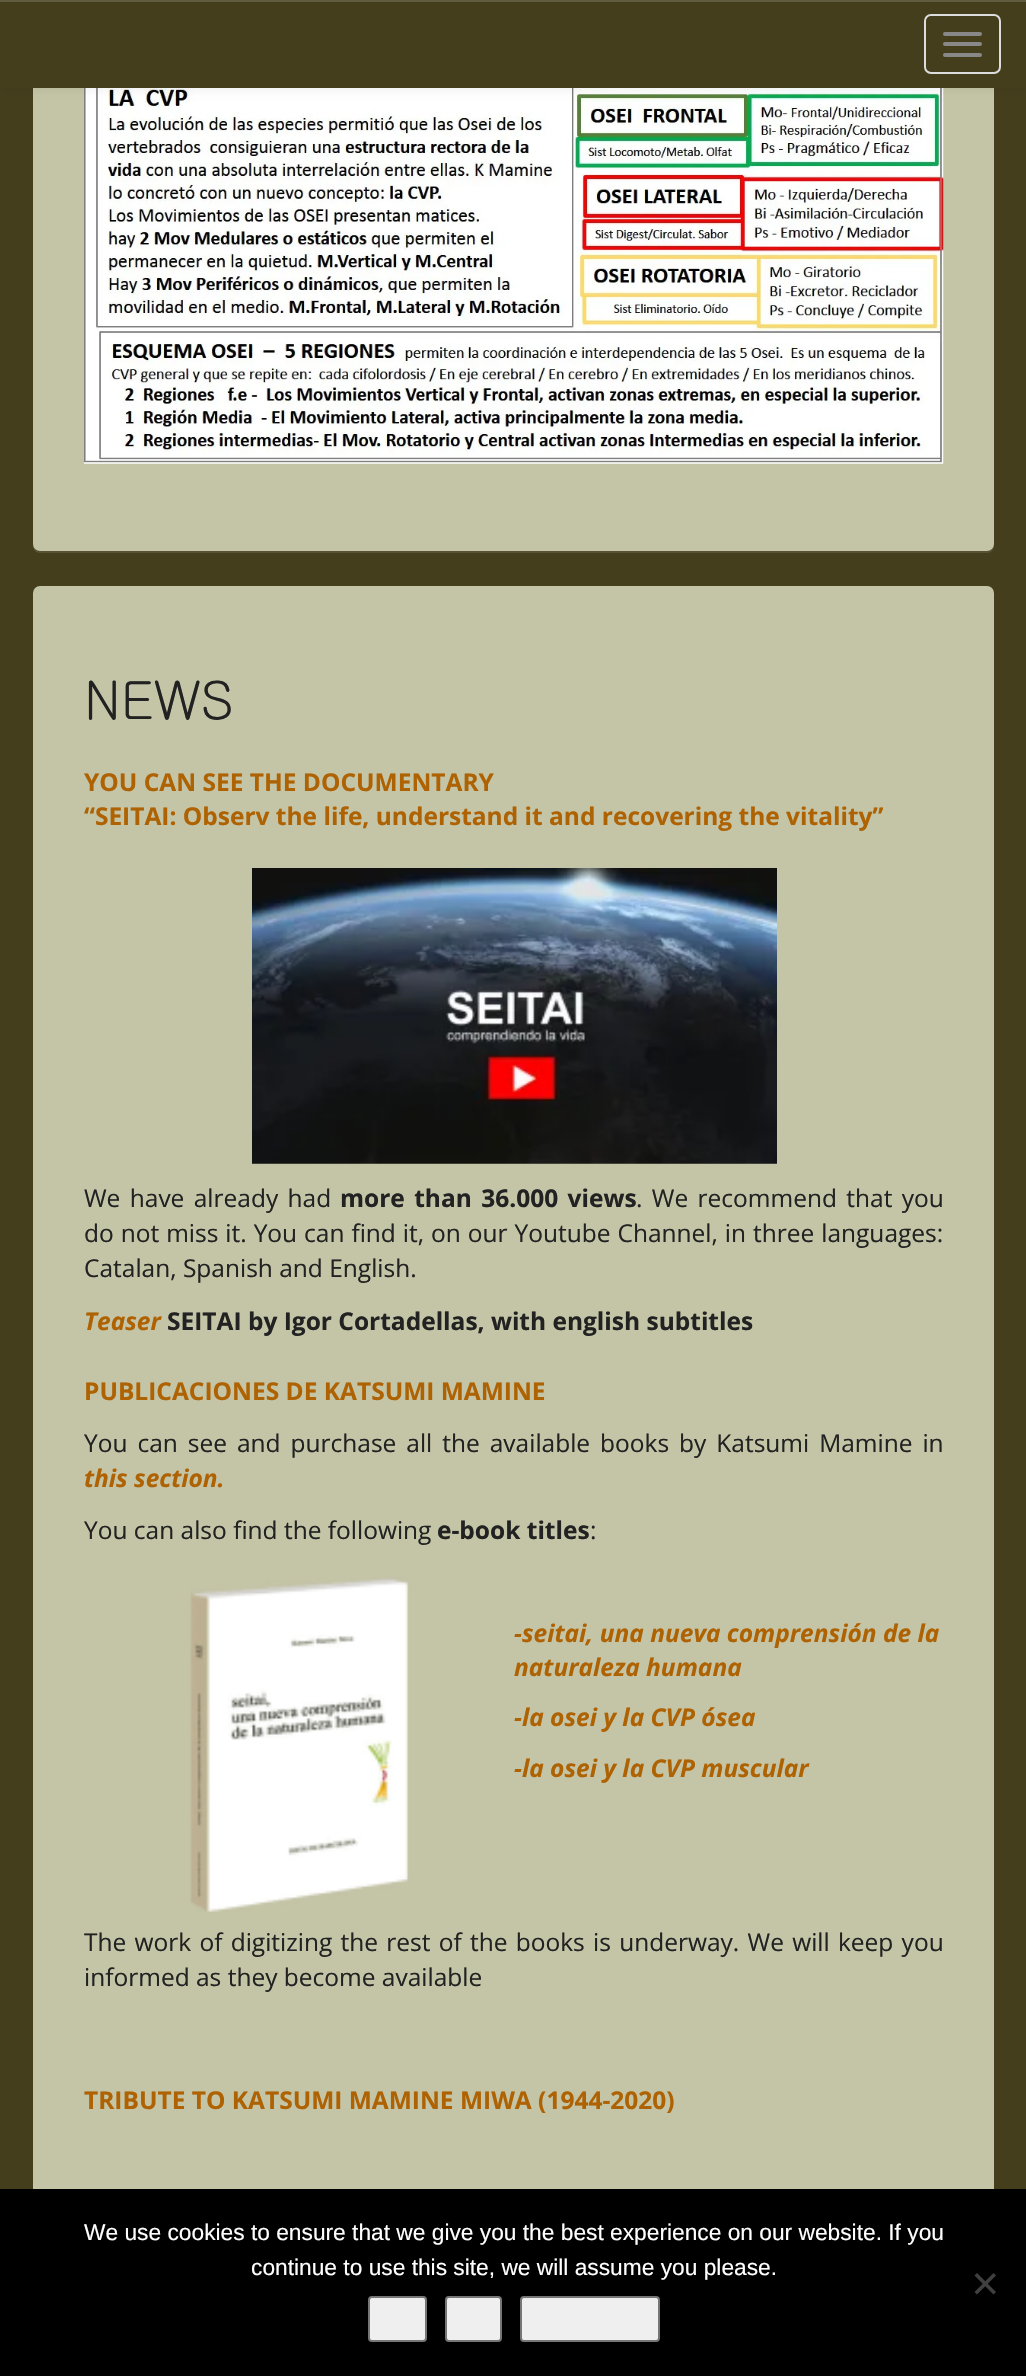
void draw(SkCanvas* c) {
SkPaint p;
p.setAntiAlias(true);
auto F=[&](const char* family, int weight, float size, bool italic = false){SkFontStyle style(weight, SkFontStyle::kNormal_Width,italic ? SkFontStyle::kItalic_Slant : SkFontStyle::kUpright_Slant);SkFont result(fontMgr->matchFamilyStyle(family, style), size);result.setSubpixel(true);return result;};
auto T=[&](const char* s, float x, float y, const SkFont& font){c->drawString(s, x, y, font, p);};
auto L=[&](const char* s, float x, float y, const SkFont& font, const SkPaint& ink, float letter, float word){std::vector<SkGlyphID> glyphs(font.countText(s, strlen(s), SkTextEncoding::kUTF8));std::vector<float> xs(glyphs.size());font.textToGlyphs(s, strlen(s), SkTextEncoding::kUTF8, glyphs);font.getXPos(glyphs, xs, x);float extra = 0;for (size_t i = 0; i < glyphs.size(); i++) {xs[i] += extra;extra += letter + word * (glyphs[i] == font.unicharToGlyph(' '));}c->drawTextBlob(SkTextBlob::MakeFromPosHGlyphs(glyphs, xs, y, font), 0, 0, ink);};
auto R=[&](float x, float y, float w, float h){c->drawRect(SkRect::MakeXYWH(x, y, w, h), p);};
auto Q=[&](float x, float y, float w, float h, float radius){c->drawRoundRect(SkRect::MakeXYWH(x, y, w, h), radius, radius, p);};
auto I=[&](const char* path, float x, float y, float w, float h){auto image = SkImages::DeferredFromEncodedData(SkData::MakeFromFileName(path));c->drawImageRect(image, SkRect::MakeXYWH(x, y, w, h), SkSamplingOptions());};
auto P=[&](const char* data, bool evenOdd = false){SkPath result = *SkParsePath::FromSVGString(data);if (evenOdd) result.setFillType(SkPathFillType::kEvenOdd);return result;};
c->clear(0xff453e1d);
p.setColor(0xff585134);
c->drawPath(P("M33-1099v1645c0 4 3 7 7 7h947c4 0 7-3 7-7v-2c0 4-3 7-7 7h-947c-4 0-7-3-7-7z"),p);
p.setColor(0xffc4c4a6);
Q(33,-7,961,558,7);
I("1.png",84,88,860,376);
p.setColor(0x12000000);
p.setMaskFilter(SkMaskFilter::MakeBlur(kNormal_SkBlurStyle, 4.5));
c->drawRect(SkRect::MakeXYWH(0,2,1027,87),p);
p.setMaskFilter(nullptr);
p.setColor(0xff453e1d);
R(0,2,1026,86);
p.setColor(0xff615b3f);
R(0,0,1026,2);
p.setStroke(true);
p.setStrokeWidth(2);
p.setColor(0xffdddddd);
c->drawRoundRect(SkRect::MakeXYWH(925,15,75,58),6,6,p);
p.setStroke(false);
p.setColor(0xff888888);
Q(943,32,39,4,2);
Q(943,42,39,4,2);
Q(943,53,39,4,2);
p.setColor(0xffc4c4a6);
Q(33,586,961,1619,7);
auto f1 = F("Gulim",400,52.5);
p.setColor(0xff222222);
T("NEWS",84,719,f1);
auto f2 = F("Open Sans",700,24.5);
p.setColor(0xffae6202);
T("YOU CAN SEE THE DOCUMENTARY",84,791,f2);
T("“SEITAI: Observ the life, understand it and recovering the vitality”",84,825,f2);
I("2.png",252,868,525,296);
auto f3 = F("Open Sans",400,24.5);
p.setColor(0xff222222);
L("We have already had",84,1207,f3,p,0,3);
L("more than 36.000 views",340,1207,f2,p,0,3);
L(". We recommend that you",636,1207,f3,p,0,3);
L("do not miss it. You can find it, on our Youtube Channel, in three languages:",84,1242,f3,p,0,.6);
T("Catalan, Spanish and English.",84,1277,f3);
auto f4 = F("Open Sans",700,24.5,true);
p.setColor(0xffae6202);
T("Teaser",84,1330,f4);
p.setColor(0xff222222);
T("SEITAI by Igor Cortadellas, with english subtitles",167,1330,f2);
p.setColor(0xffae6202);
T("PUBLICACIONES DE KATSUMI MAMINE",84,1400,f2);
p.setColor(0xff222222);
L("You can see and purchase all the available books by Katsumi Mamine in",84,1452,f3,p,0,3.6);
p.setColor(0xffae6202);
T("this section.",84,1487,f4);
p.setColor(0xff222222);
T("You can also find the following",84,1539,f3);
T("e-book titles",437,1539,f2);
T(":",590,1539,f3);
I("3.png",190,1577,219,336);
p.setColor(0xffae6202);
T("-seitai, una nueva comprensión de la",514,1642,f4);
T("naturaleza humana",514,1676,f4);
T("-la osei y la CVP ósea",514,1726,f4);
T("-la osei y la CVP muscular",514,1777,f4);
p.setColor(0xff222222);
L("The work of digitizing the rest of the books is underway. We will keep you",84,1951,f3,p,0,1.9);
T("informed as they become available",84,1986,f3);
p.setColor(0xffae6202);
T("TRIBUTE TO KATSUMI MAMINE MIWA (1944-2020)",84,2109,f2);
p.setColor(0xff000000);
R(0,2189,1026,187);
auto f5 = F("Liberation Sans",400,22.75);
p.setColor(0xffffffff);
T("We use cookies to ensure that we give you the best experience on our website. If you",84,2240,f5);
T("continue to use this site, we will assume you please.",251,2275,f5);
p.setColor(0xff404040);
c->drawPath(P("M993.5 2273l2.5 2.5l-19 19l-2.5-2.5z"),p);
c->drawPath(P("M974.5 2275.5l2.5-2.5l19 19l-2.5 2.5z"),p);
p.setColor(0xffefefef);
c->drawRoundRect(SkRect::MakeXYWH(369,2297,57,44),3,3,p);
p.setStroke(true);
p.setColor(0xff767676);
c->drawRoundRect(SkRect::MakeXYWH(369,2297,57,44),3,3,p);
p.setStroke(false);
p.setColor(0xffefefef);
c->drawRoundRect(SkRect::MakeXYWH(446,2297,55,44),3,3,p);
p.setStroke(true);
p.setColor(0xff767676);
c->drawRoundRect(SkRect::MakeXYWH(446,2297,55,44),3,3,p);
p.setStroke(false);
p.setColor(0xffefefef);
c->drawRoundRect(SkRect::MakeXYWH(521,2297,138,44),3,3,p);
p.setStroke(true);
p.setColor(0xff767676);
c->drawRoundRect(SkRect::MakeXYWH(521,2297,138,44),3,3,p);
}
